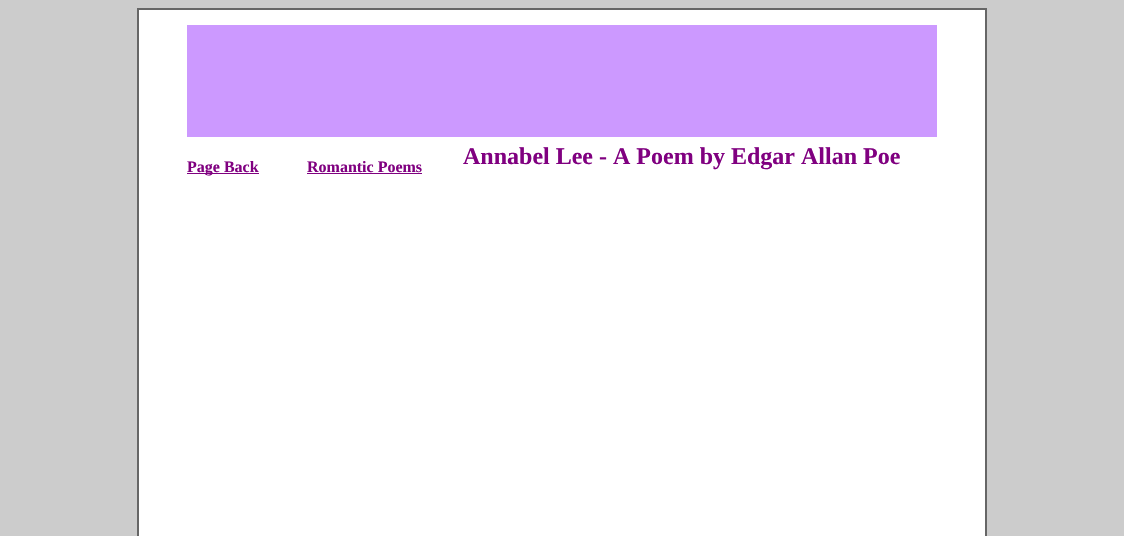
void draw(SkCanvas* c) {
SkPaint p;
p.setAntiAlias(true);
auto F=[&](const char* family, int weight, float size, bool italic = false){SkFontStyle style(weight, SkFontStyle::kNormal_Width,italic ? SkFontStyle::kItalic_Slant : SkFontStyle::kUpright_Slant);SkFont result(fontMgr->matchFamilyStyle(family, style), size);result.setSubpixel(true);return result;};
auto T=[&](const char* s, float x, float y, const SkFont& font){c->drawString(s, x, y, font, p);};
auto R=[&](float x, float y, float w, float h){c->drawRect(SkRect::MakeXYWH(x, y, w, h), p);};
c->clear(0xffcccccc);
p.setColor(0xffffffff);
R(139,10,846,526);
p.setStroke(true);
p.setStrokeWidth(1);
p.setColor(0xff666666);
c->drawRect(SkRect::MakeXYWH(137.5,8.5,849,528),p);
c->drawRect(SkRect::MakeXYWH(138.5,9.5,847,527),p);
p.setStroke(false);
p.setColor(0xffcc99ff);
R(187,25,750,112);
p.setColor(0xff800080);
R(187,173,72,1);
auto f1 = F("Liberation Serif",700,16);
T("Page Back",187,172,f1);
T("Romantic Poems",307,172,f1);
R(307,173,115,1);
auto f2 = F("Liberation Serif",700,24);
T("Annabel Lee - A Poem by Edgar Allan Poe",463,164,f2);
}
